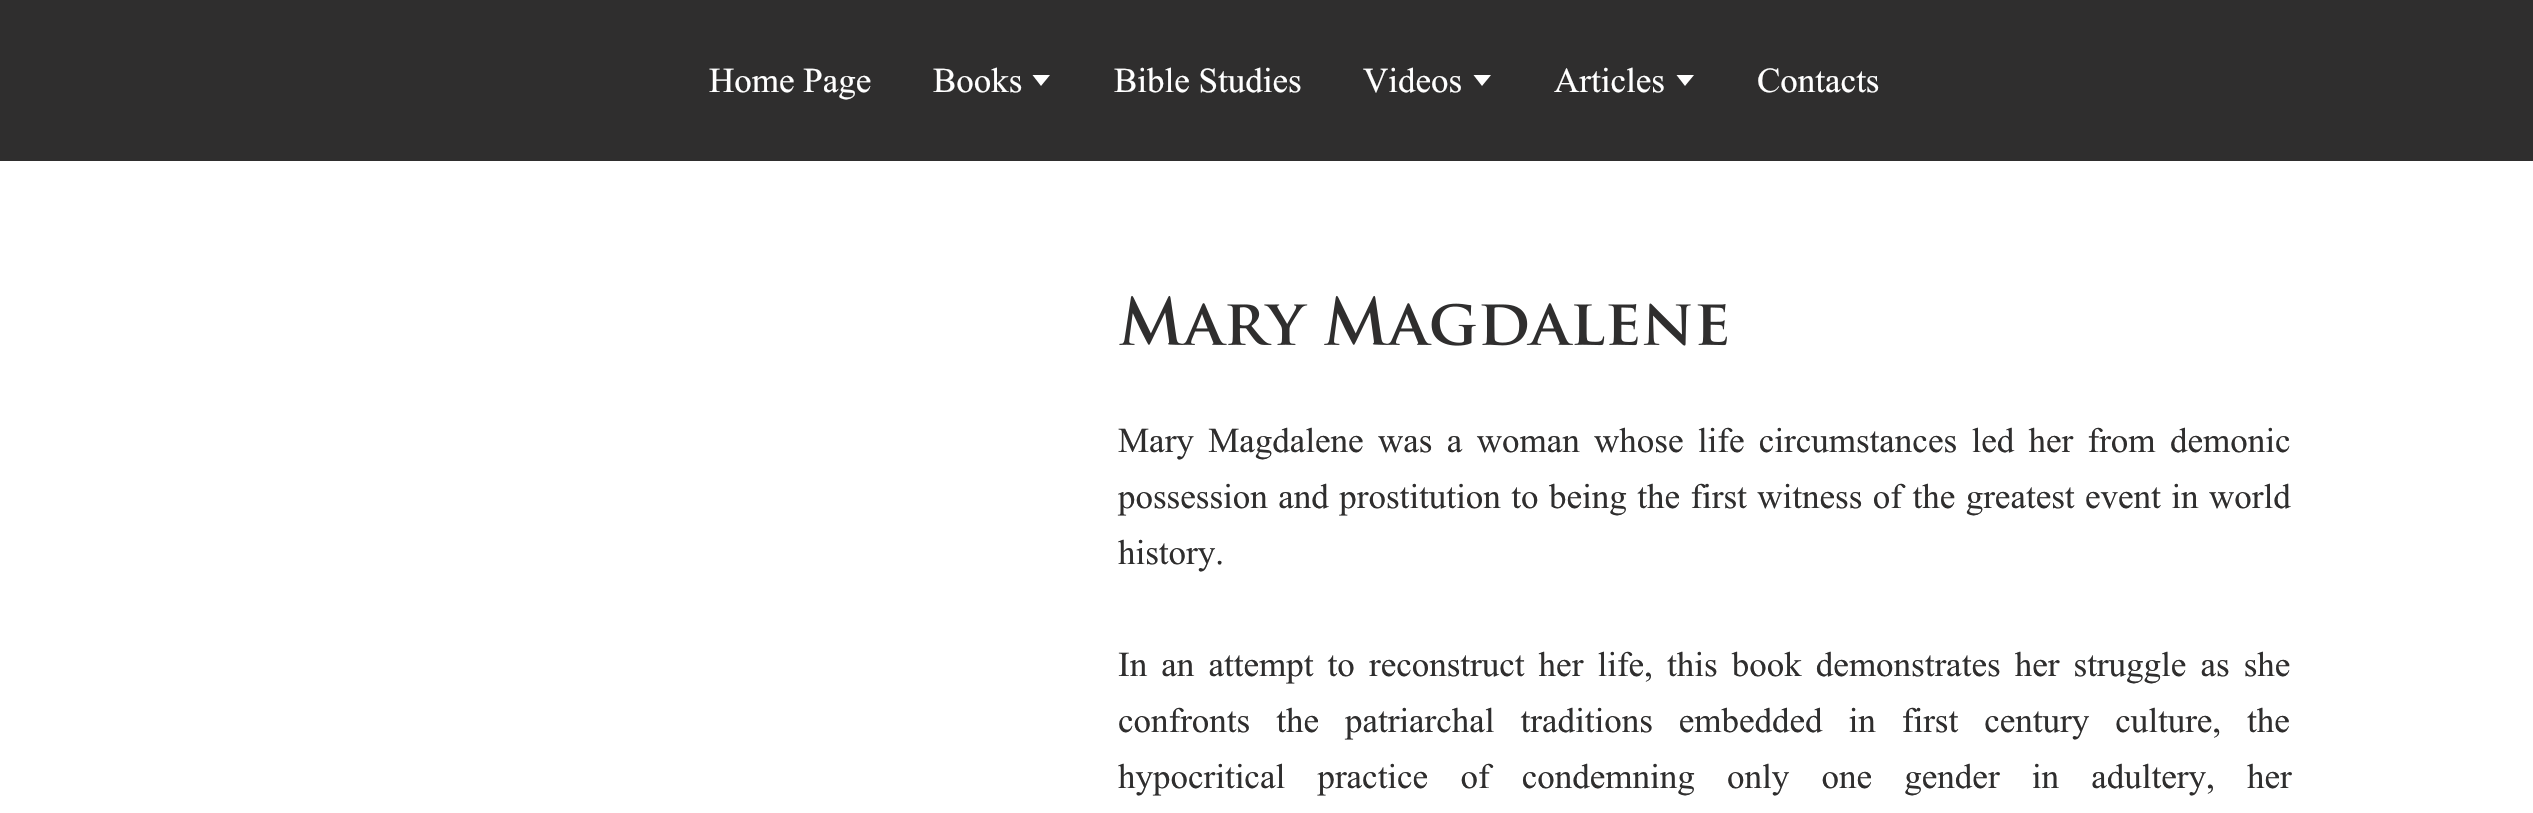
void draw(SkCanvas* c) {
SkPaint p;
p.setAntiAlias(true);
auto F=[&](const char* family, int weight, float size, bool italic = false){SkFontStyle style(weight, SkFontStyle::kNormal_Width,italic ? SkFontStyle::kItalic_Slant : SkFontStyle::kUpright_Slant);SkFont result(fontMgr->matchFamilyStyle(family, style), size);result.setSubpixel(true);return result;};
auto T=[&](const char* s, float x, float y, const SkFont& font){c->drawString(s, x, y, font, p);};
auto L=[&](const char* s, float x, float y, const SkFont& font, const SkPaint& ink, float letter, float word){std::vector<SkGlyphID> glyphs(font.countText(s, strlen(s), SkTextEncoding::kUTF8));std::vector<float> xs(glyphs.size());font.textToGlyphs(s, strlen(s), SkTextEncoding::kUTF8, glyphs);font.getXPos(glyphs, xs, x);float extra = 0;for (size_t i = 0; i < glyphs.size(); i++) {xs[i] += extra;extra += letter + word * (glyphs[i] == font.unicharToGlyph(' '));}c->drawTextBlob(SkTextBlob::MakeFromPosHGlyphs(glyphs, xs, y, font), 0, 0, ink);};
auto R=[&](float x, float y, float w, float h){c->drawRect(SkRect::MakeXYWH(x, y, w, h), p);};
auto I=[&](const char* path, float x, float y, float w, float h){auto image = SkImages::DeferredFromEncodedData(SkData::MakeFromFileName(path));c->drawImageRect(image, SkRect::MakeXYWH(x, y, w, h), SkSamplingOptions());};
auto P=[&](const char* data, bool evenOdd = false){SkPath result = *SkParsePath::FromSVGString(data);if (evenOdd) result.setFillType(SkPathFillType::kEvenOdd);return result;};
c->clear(0xffffffff);
p.setColor(0xff2f2e2e);
R(0,0,2533,161);
auto f1 = F("Times New Roman",400,35);
p.setColor(0xffffffff);
T("Home Page",709,92,f1);
T("Books",933,92,f1);
c->drawPath(P("M1041 86l9-11h-17.5z"),p);
T("Bible Studies",1114,92,f1);
T("Videos",1363,92,f1);
c->drawPath(P("M1482 86l9-11h-17.5z"),p);
T("Articles",1554,92,f1);
c->drawPath(P("M1685 86l9-11h-17.5z"),p);
T("Contacts",1757,92,f1);
I("1.png",1119,295,608,51);
p.setColor(0xff2f2e2e);
L("Mary Magdalene was a woman whose life circumstances led her from demonic",1118,452,f1,p,0,5.6);
L("possession and prostitution to being the first witness of the greatest event in world",1118,508,f1,p,0,1.75);
T("history.",1118,564,f1);
L("In an attempt to reconstruct her life, this book demonstrates her struggle as she",1118,676,f1,p,0,5.4);
L("confronts the patriarchal traditions embedded in first century culture, the",1118,732,f1,p,0,17.25);
L("hypocritical practice of condemning only one gender in adultery, her",1118,788,f1,p,0,23.5);
}
